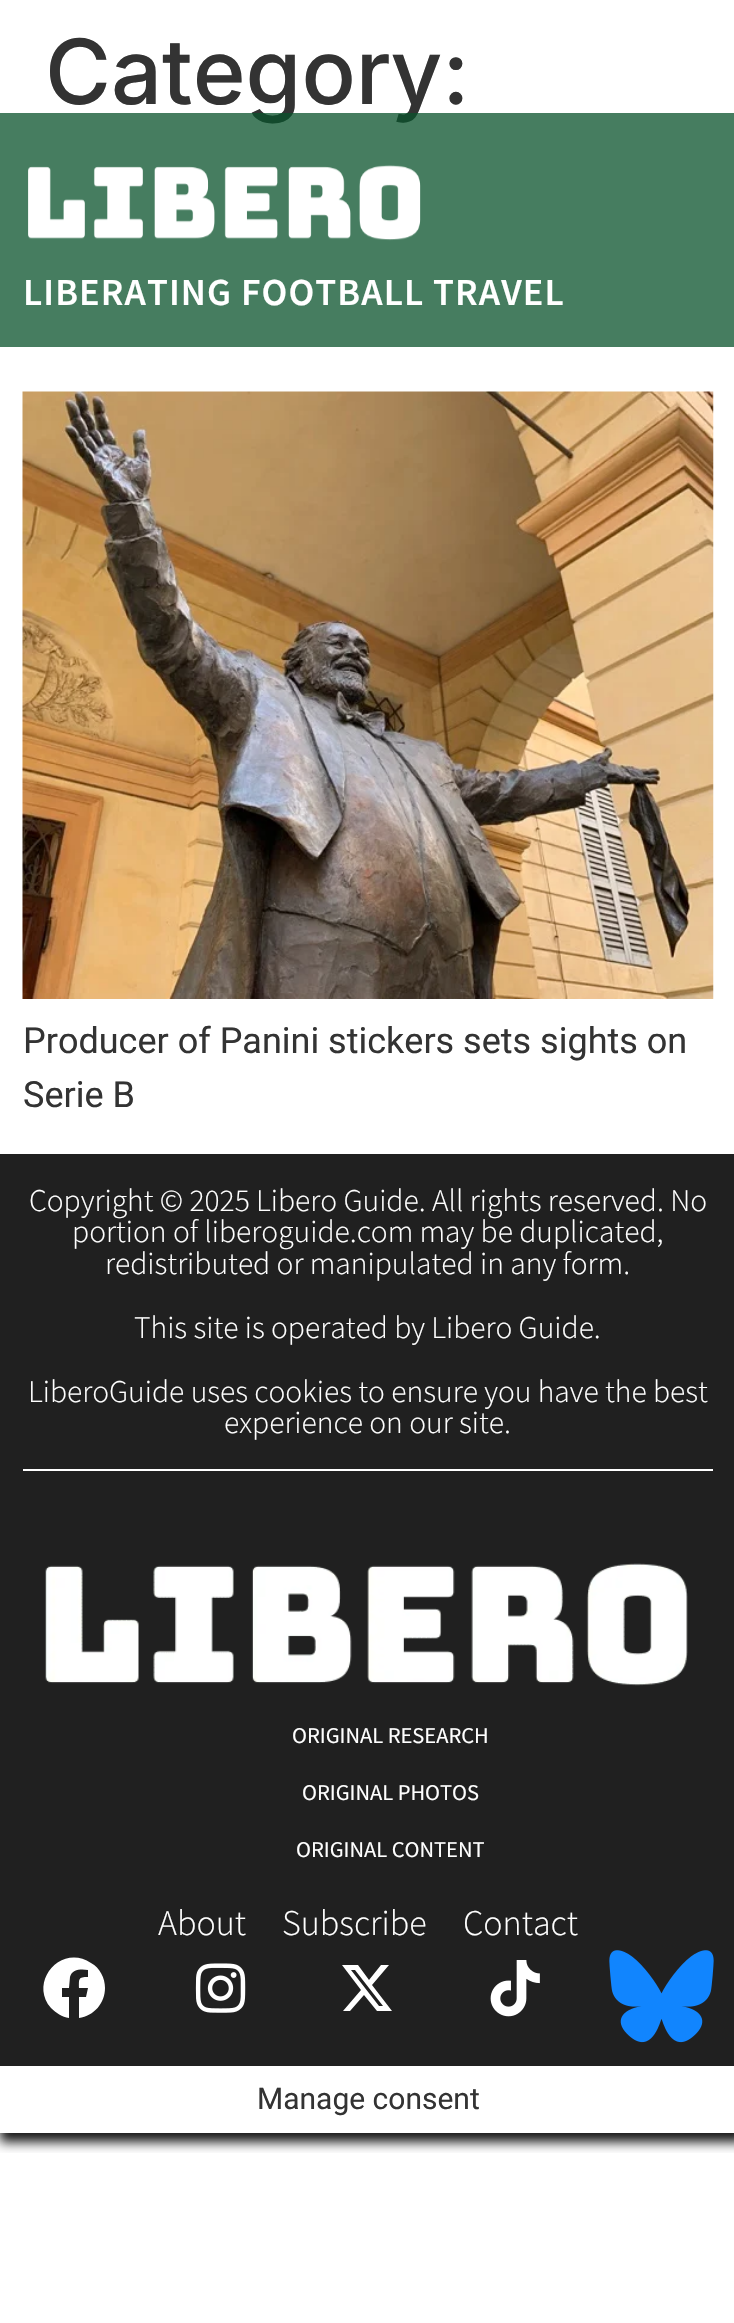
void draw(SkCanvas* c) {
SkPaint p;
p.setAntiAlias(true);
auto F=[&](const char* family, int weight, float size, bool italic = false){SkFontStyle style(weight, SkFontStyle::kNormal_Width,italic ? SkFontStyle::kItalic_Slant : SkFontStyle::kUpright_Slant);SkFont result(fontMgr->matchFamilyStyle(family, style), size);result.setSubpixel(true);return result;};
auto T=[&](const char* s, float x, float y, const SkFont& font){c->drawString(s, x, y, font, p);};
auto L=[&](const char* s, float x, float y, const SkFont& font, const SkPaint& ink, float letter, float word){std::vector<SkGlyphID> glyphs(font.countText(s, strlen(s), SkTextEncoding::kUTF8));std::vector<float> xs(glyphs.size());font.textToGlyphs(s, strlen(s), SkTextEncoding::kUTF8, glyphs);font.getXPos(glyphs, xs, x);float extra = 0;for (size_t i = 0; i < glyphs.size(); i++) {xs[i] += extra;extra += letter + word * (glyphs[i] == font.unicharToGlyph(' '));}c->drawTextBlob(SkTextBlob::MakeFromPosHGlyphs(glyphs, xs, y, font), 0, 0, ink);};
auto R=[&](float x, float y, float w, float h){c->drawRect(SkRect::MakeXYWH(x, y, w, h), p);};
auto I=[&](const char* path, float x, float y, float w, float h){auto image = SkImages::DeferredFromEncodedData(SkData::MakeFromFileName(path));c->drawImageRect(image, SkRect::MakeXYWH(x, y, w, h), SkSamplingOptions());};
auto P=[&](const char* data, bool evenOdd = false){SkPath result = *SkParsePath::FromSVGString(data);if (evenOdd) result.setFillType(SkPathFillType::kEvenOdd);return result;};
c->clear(0xffffffff);
auto f1 = F("Inter",500,90);
p.setColor(0xff333333);
T("Category:",45,104,f1);
I("1.png",22,391,692,608);
auto f2 = F("Roboto",400,36);
T("Producer of Panini stickers sets sights on",23,1053,f2);
T("Serie B",23,1107,f2);
p.setColor(0xbf08512b);
R(0,113,734,234);
I("2.png",28,165,393,76);
auto f3 = F("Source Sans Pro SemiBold",600,38.25);
p.setColor(0xffffffff);
L("LIBERATING FOOTBALL TRAVEL",23,305,f3,p,1.1,0);
c->save();
c->clipRect(SkRect::MakeXYWH(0,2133,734,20));
p.setColor(0xff161616);
p.setMaskFilter(SkMaskFilter::MakeBlur(kNormal_SkBlurStyle, 5.5));
c->drawRect(SkRect::MakeXYWH(0,2066,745,76),p);
p.setMaskFilter(nullptr);
c->restore();
p.setColor(0xff202020);
R(0,1154,734,912);
auto f4 = F("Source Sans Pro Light",300,31.5);
p.setColor(0xffffffff);
T("Copyright © 2025 Libero Guide. All rights reserved. No",29,1211,f4);
T("portion of liberoguide.com may be duplicated,",72,1242,f4);
T("redistributed or manipulated in any form.",105,1274,f4);
T("This site is operated by Libero Guide.",134,1338,f4);
T("LiberoGuide uses cookies to ensure you have the best",28,1402,f4);
T("experience on our site.",224,1433,f4);
R(23,1469,690,2);
I("3.png",45,1563,643,123);
auto f5 = F("Source Sans Pro",400,22.5);
T("ORIGINAL RESEARCH",292,1743,f5);
T("ORIGINAL PHOTOS",302,1800,f5);
T("ORIGINAL CONTENT",296,1857,f5);
auto f6 = F("Source Sans Pro Light",300,36);
T("About",158,1935,f6);
T("Subscribe",282,1935,f6);
T("Contact",463,1935,f6);
c->drawPath(P("M105 1988c0 15-11 28-26 30v-21h7l2-9h-9c0-9-1-11 9-11v-7c-7-1-16-1-18 7l-1 11h-7v9h7v21c-7-1-13-5-18-10c-23-27 11-65 40-45c9 5 14 15 14 25z"),p);
I("4.png",195,1963,51,50);
c->drawPath(P("M381 1965h8l-17 20l20 26h-15l-13-16l-14 16h-7l18-21l-19-25h16l11 15zm-2 41h4l-28-36h-4z"),p);
I("5.png",490,1960,50,57);
I("6.png",609,1950,105,93);
auto f7 = F("Roboto",400,30);
p.setColor(0xff333333);
T("Manage consent",257,2109,f7);
}
